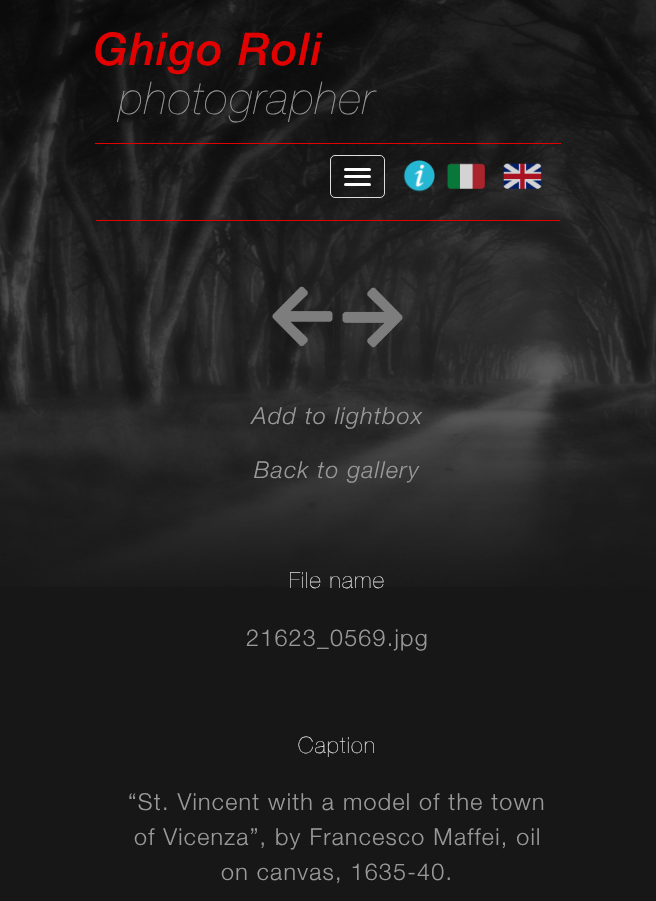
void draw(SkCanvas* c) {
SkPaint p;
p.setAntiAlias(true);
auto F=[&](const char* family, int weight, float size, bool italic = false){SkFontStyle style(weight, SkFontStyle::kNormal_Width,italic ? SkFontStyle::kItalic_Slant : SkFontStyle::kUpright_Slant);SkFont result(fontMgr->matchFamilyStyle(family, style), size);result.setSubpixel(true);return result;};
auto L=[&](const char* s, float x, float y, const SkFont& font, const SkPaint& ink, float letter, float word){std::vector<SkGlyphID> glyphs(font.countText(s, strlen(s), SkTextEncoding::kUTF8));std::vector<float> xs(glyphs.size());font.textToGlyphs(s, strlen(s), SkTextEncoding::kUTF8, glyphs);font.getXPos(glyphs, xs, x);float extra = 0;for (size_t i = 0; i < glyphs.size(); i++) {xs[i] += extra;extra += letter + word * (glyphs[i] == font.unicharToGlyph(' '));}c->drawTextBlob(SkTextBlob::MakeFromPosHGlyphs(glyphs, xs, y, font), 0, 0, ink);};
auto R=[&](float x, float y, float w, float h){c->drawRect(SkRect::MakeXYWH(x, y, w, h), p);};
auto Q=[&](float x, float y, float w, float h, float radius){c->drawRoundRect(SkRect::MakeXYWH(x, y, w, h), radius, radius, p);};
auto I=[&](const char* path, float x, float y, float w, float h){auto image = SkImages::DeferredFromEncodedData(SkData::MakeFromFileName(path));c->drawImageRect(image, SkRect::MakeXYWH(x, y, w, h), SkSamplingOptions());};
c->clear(0xff171717);
I("1.png",0,0,656,587);
auto f1 = F("Helvetica Neue",500,45,true);
p.setColor(0xffe20101);
L("Ghigo Roli",94,65,f1,p,1.25,0);
auto f2 = F("Helvetica Neue",300,45,true);
p.setColor(0xff999999);
L("photographer",119,114,f2,p,1.25,0);
p.setColor(0xffe20101);
R(95,143,466,1);
p.setStroke(true);
p.setStrokeWidth(1);
p.setColor(0xffdddddd);
c->drawRoundRect(SkRect::MakeXYWH(330.5,155.5,54,42),4.5,4.5,p);
p.setStroke(false);
p.setColor(0xffffffff);
Q(344,168,27,3,1.5);
Q(344,175,27,3,1.5);
Q(344,183,27,3,1.5);
I("2.png",403,160,32,32);
I("3.png",447,163,38,26);
I("4.png",503,163,39,26);
p.setColor(0xffe20101);
R(96,220,464,1);
I("5.png",272,285,62,63);
I("6.png",341,285,62,63);
auto f3 = F("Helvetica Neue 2",300,23.3,true);
p.setColor(0xff999999);
L("Add to lightbox",252,424,f3,p,1.25,0);
L("Back to gallery",254,478,f3,p,1.25,0);
auto f4 = F("Helvetica Neue",300,22.5);
p.setColor(0xffffffff);
L("File name",289,588,f4,p,1.25,0);
auto f5 = F("Helvetica Neue 2",300,23.3);
p.setColor(0xff999999);
L("21623_0569.jpg",246,646,f5,p,1.25,0);
p.setColor(0xffffffff);
L("Caption",298,753,f4,p,1.25,0);
p.setColor(0xff999999);
L("“St. Vincent with a model of the town",128,810,f5,p,1.25,0);
L("of Vicenza”, by Francesco Maffei, oil",134,845,f5,p,1.25,0);
L("on canvas, 1635-40.",221,880,f5,p,1.25,0);
}
